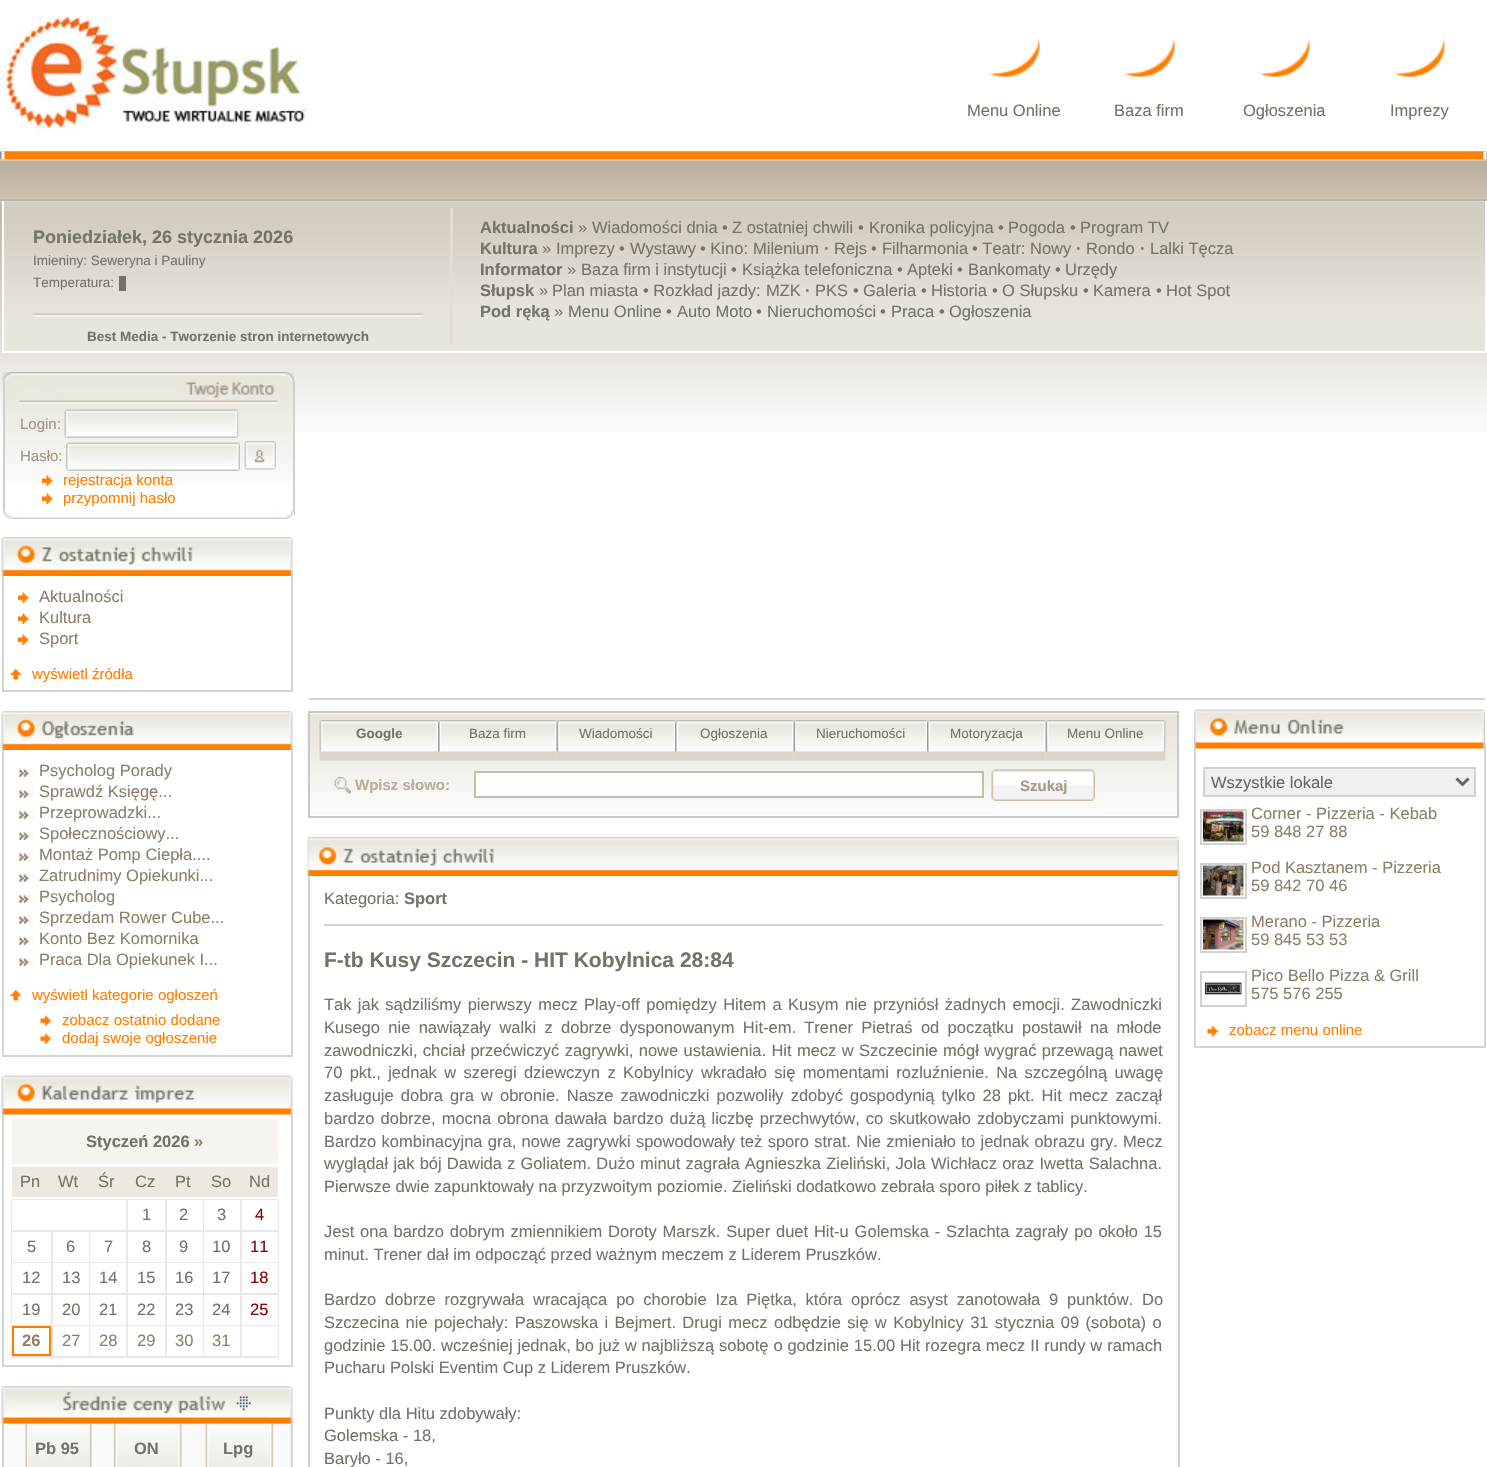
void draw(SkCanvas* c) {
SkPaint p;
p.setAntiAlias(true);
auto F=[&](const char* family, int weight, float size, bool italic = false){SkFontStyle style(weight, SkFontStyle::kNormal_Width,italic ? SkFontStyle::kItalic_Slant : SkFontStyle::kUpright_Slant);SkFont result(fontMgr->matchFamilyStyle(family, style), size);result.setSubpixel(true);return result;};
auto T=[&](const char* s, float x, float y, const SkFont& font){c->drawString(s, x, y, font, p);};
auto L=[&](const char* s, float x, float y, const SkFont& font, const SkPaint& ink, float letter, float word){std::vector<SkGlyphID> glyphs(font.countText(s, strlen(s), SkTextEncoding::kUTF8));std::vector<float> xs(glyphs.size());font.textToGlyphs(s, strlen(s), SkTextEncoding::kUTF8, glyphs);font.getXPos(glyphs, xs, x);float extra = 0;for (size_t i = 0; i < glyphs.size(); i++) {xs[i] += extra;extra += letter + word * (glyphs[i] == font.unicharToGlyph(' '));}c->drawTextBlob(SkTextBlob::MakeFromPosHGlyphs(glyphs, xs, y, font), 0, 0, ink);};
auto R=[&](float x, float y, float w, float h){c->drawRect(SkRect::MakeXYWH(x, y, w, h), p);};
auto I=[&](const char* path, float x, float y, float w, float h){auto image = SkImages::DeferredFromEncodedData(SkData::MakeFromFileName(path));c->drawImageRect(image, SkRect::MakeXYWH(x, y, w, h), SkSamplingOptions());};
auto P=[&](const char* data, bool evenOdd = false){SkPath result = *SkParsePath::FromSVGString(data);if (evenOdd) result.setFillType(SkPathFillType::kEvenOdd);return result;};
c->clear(0xffffffff);
I("1.png",0,151,1487,281);
I("2.png",1,151,1486,8);
I("3.png",1,16,306,121);
I("4.png",987,37,53,40);
auto f1 = F("Liberation Sans",400,16.5);
p.setColor(0xff737369);
T("Menu Online",967,116,f1);
I("5.png",1122,37,53,40);
T("Baza firm",1114,116,f1);
I("6.png",1257,37,53,40);
T("Ogłoszenia",1243,116,f1);
I("4.png",1392,37,53,40);
T("Imprezy",1390,116,f1);
p.setColor(0xffe8e5dc);
R(4,330,1481,21);
I("7.png",1,201,1484,129);
p.setColor(0xffffffff);
R(1485,201,2,152);
R(2,351,1485,2);
R(2,201,2,152);
p.setColor(0xffe2ddd5);
R(450,208,3,136);
auto f2 = F("Liberation Sans",700,18);
p.setColor(0xff737369);
T("Poniedziałek, 26 stycznia 2026",33,243,f2);
auto f3 = F("Liberation Sans",400,13.5);
T("Imieniny: Seweryna i Pauliny",33,265,f3);
T("Temperatura:",33,287,f3);
R(119,276,7,15);
I("8.png",33,313,390,4);
auto f4 = F("Liberation Sans",700,13.5);
T("Best Media - Tworzenie stron internetowych",87,341,f4);
auto f5 = F("Liberation Sans",700,16.5);
T("Aktualności",480,233,f5);
T("»",578,233,f1);
T("Wiadomości dnia",592,233,f1);
T("•",722,233,f1);
T("Z ostatniej chwili",732,233,f1);
T("•",858,233,f1);
T("Kronika policyjna",869,233,f1);
T("•",998,233,f1);
T("Pogoda",1008,233,f1);
T("•",1070,233,f1);
T("Program TV",1080,233,f1);
T("Kultura",480,254,f5);
T("»",542,254,f1);
T("Imprezy",556,254,f1);
T("•",619,254,f1);
T("Wystawy",630,254,f1);
T("• Kino:",700,254,f1);
T("Milenium",753,254,f1);
T("·",824,254,f5);
T("Rejs",834,254,f1);
T("•",871,254,f1);
T("Filharmonia",882,254,f1);
T("• Teatr:",972,254,f1);
T("Nowy",1030,254,f1);
T("·",1076,254,f5);
T("Rondo",1086,254,f1);
T("·",1140,254,f5);
T("Lalki Tęcza",1150,254,f1);
T("Informator",480,275,f5);
T("»",567,275,f1);
T("Baza firm i instytucji",581,275,f1);
T("•",731,275,f1);
T("Książka telefoniczna",742,275,f1);
T("•",897,275,f1);
T("Apteki",907,275,f1);
T("•",957,275,f1);
T("Bankomaty",968,275,f1);
T("•",1055,275,f1);
T("Urzędy",1065,275,f1);
T("Słupsk",480,296,f5);
T("»",539,296,f1);
T("Plan miasta",552,296,f1);
T("• Rozkład jazdy:",643,296,f1);
T("MZK",766,296,f1);
T("·",805,296,f5);
T("PKS",815,296,f1);
T("•",853,296,f1);
T("Galeria",863,296,f1);
T("•",921,296,f1);
T("Historia",931,296,f1);
T("•",992,296,f1);
T("O Słupsku",1002,296,f1);
T("•",1083,296,f1);
T("Kamera",1093,296,f1);
T("•",1156,296,f1);
T("Hot Spot",1166,296,f1);
T("Pod ręką",480,317,f5);
T("»",554,317,f1);
T("Menu Online",568,317,f1);
T("•",666,317,f1);
T("Auto Moto",677,317,f1);
T("•",756,317,f1);
T("Nieruchomości",767,317,f1);
T("•",880,317,f1);
T("Praca",891,317,f1);
T("•",939,317,f1);
T("Ogłoszenia",949,317,f1);
I("9.png",1,372,293,9);
I("10.png",5,381,288,103);
p.setColor(0xffcfcfcf);
R(293,381,2,134);
R(3,381,2,134);
I("11.png",19,381,259,23);
auto f6 = F("Liberation Sans",400,15);
p.setColor(0xff9f9383);
T("Login:",20,429,f6);
p.setColor(0xffffffff);
R(238,410,1,28);
I("12.png",64,409,175,29);
p.setColor(0xff9f9383);
T("Hasło:",20,461,f6);
I("13.png",66,442,174,29);
p.setColor(0xffefefef);
R(245,469,31,1);
I("14.png",244,441,32,29);
I("15.png",42,475,11,11);
p.setColor(0xffff7e00);
T("rejestracja konta",63,485,f6);
I("16.png",42,493,11,11);
T("przypomnij hasło",63,503,f6);
I("17.png",2,510,292,9);
p.setColor(0xffd4d4d2);
R(291,572,2,120);
R(2,690,291,2);
R(2,572,2,120);
I("18.png",1,537,292,39);
I("19.png",18,592,11,11);
p.setColor(0xff8e7f6a);
T("Aktualności",39,602,f1);
I("19.png",18,613,11,11);
T("Kultura",39,623,f1);
I("19.png",18,634,11,11);
T("Sport",39,644,f1);
I("20.png",10,669,12,11);
p.setColor(0xffff7e00);
T("wyświetl źródła",32,679,f6);
p.setColor(0xffd4d4d2);
R(291,746,2,310);
R(2,1055,291,2);
R(2,746,2,310);
I("21.png",1,711,292,39);
I("22.png",18,768,16,9);
p.setColor(0xff8e7f6a);
T("Psycholog Porady",39,776,f1);
I("22.png",18,789,16,9);
T("Sprawdź Księgę...",39,797,f1);
I("22.png",18,810,16,9);
T("Przeprowadzki...",39,818,f1);
I("22.png",18,831,16,9);
T("Społecznościowy...",39,839,f1);
I("22.png",18,852,16,9);
T("Montaż Pomp Ciepła....",39,860,f1);
I("22.png",18,873,16,9);
T("Zatrudnimy Opiekunki...",39,881,f1);
I("22.png",18,894,16,9);
T("Psycholog",39,902,f1);
I("22.png",18,915,16,9);
T("Sprzedam Rower Cube...",39,923,f1);
I("22.png",18,936,16,9);
T("Konto Bez Komornika",39,944,f1);
I("22.png",18,957,16,9);
T("Praca Dla Opiekunek I...",39,965,f1);
I("20.png",10,990,12,11);
p.setColor(0xffff7e00);
T("wyświetl kategorie ogłoszeń",32,1000,f6);
I("23.png",40,1015,12,11);
T("zobacz ostatnio dodane",62,1025,f6);
I("23.png",40,1033,12,11);
T("dodaj swoje ogłoszenie",62,1043,f6);
p.setColor(0xffd4d4d2);
R(291,1110,2,257);
R(2,1365,291,2);
R(2,1110,2,257);
I("24.png",1,1075,292,40);
p.setColor(0xfff7f3ef);
R(12,1119,266,45);
p.setColor(0xff737369);
T("Styczeń 2026",86,1147,f5);
p.setColor(0xff8e7f6a);
T("»",194,1147,f5);
p.setColor(0xffeee8e2);
R(12,1167,266,30);
p.setColor(0xff737369);
T("Pn",20,1187,f1);
T("Wt",58,1187,f1);
T("Śr",98,1187,f1);
T("Cz",135,1187,f1);
T("Pt",175,1187,f1);
T("So",211,1187,f1);
T("Nd",249,1187,f1);
p.setColor(0xffeee8e2);
R(11,1199,268,159);
p.setColor(0xffffffff);
R(12,1200,114,30);
R(128,1200,37,30);
p.setColor(0xff737369);
T("1",142,1220,f1);
p.setColor(0xffffffff);
R(167,1200,36,30);
p.setColor(0xff737369);
T("2",179,1220,f1);
p.setColor(0xffffffff);
R(204,1200,36,30);
p.setColor(0xff737369);
T("3",217,1220,f1);
p.setColor(0xffffffff);
R(242,1200,36,30);
p.setColor(0xff880000);
T("4",255,1220,f1);
p.setColor(0xffffffff);
R(12,1232,39,30);
p.setColor(0xff737369);
T("5",27,1252,f1);
p.setColor(0xffffffff);
R(53,1232,36,30);
p.setColor(0xff737369);
T("6",66,1252,f1);
p.setColor(0xffffffff);
R(90,1232,36,30);
p.setColor(0xff737369);
T("7",104,1252,f1);
p.setColor(0xffffffff);
R(128,1232,37,30);
p.setColor(0xff737369);
T("8",142,1252,f1);
p.setColor(0xffffffff);
R(167,1232,36,30);
p.setColor(0xff737369);
T("9",179,1252,f1);
p.setColor(0xffffffff);
R(204,1232,36,30);
p.setColor(0xff737369);
T("10",212,1252,f1);
p.setColor(0xffffffff);
R(242,1232,36,30);
p.setColor(0xff880000);
T("11",250,1252,f1);
p.setColor(0xffffffff);
R(12,1263,39,30);
p.setColor(0xff737369);
T("12",22,1283,f1);
p.setColor(0xffffffff);
R(53,1263,36,30);
p.setColor(0xff737369);
T("13",62,1283,f1);
p.setColor(0xffffffff);
R(90,1263,36,30);
p.setColor(0xff737369);
T("14",99,1283,f1);
p.setColor(0xffffffff);
R(128,1263,37,30);
p.setColor(0xff737369);
T("15",137,1283,f1);
p.setColor(0xffffffff);
R(167,1263,36,30);
p.setColor(0xff737369);
T("16",175,1283,f1);
p.setColor(0xffffffff);
R(204,1263,36,30);
p.setColor(0xff737369);
T("17",212,1283,f1);
p.setColor(0xffffffff);
R(242,1263,36,30);
p.setColor(0xff880000);
T("18",250,1283,f1);
p.setColor(0xffffffff);
R(12,1295,39,30);
p.setColor(0xff737369);
T("19",22,1315,f1);
p.setColor(0xffffffff);
R(53,1295,36,30);
p.setColor(0xff737369);
T("20",62,1315,f1);
p.setColor(0xffffffff);
R(90,1295,36,30);
p.setColor(0xff737369);
T("21",99,1315,f1);
p.setColor(0xffffffff);
R(128,1295,37,30);
p.setColor(0xff737369);
T("22",137,1315,f1);
p.setColor(0xffffffff);
R(167,1295,36,30);
p.setColor(0xff737369);
T("23",175,1315,f1);
p.setColor(0xffffffff);
R(204,1295,36,30);
p.setColor(0xff737369);
T("24",212,1315,f1);
p.setColor(0xffffffff);
R(242,1295,36,30);
p.setColor(0xff880000);
T("25",250,1315,f1);
p.setColor(0xffffffff);
c->drawRect(SkRect::MakeXYWH(13,1327,37,28),p);
p.setStroke(true);
p.setStrokeWidth(2);
p.setColor(0xffff7e00);
c->drawRect(SkRect::MakeXYWH(13,1327,37,28),p);
p.setStroke(false);
p.setColor(0xff8e7f6a);
T("26",22,1346,f5);
p.setColor(0xffffffff);
R(53,1326,36,30);
p.setColor(0xff8e7f6a);
T("27",62,1346,f1);
p.setColor(0xffffffff);
R(90,1326,36,30);
p.setColor(0xff8e7f6a);
T("28",99,1346,f1);
p.setColor(0xffffffff);
R(128,1326,37,30);
p.setColor(0xff8e7f6a);
T("29",137,1346,f1);
p.setColor(0xffffffff);
R(167,1326,36,30);
p.setColor(0xff8e7f6a);
T("30",175,1346,f1);
p.setColor(0xffffffff);
R(204,1326,36,30);
p.setColor(0xff8e7f6a);
T("31",212,1346,f1);
p.setColor(0xffffffff);
R(242,1326,36,30);
I("26.png",1,1419,290,48);
p.setColor(0xffd4d4d2);
R(291,1419,2,48);
R(2,1419,2,48);
I("25.png",1,1386,292,38);
p.setColor(0xff737369);
T("Pb 95",35,1454,f5);
T("ON",134,1454,f5);
T("Lpg",223,1454,f5);
p.setColor(0xffd2d2d0);
R(309,698,1176,2);
I("27.png",307,713,870,101);
p.setStroke(true);
p.setColor(0xffcac9c8);
c->drawRect(SkRect::MakeXYWH(309,712,869,105),p);
I("28.png",319,720,119,41);
p.setStroke(false);
p.setColor(0xff737369);
T("Google",356,738,f4);
I("29.png",438,720,119,41);
T("Baza firm",469,738,f3);
I("30.png",556,720,119,41);
T("Wiadomości",579,738,f3);
I("31.png",675,720,119,41);
T("Ogłoszenia",700,738,f3);
I("32.png",793,720,134,41);
T("Nieruchomości",816,738,f3);
I("31.png",927,720,119,41);
T("Motoryzacja",950,738,f3);
I("33.png",1045,720,121,41);
T("Menu Online",1067,738,f3);
I("34.png",334,777,17,17);
auto f7 = F("Liberation Sans",700,15);
p.setColor(0xffbaad9b);
T("Wpisz słowo:",355,790,f7);
p.setColor(0xffffffff);
c->drawRect(SkRect::MakeXYWH(475,772,508,25),p);
p.setStroke(true);
p.setColor(0xffcabda8);
c->drawRect(SkRect::MakeXYWH(475,772,508,25),p);
I("35.png",991,769,104,32);
p.setStroke(false);
p.setColor(0xffa69885);
T("Szukaj",1020,791,f7);
p.setColor(0xffd2d2d0);
R(1178,872,2,595);
R(308,872,2,595);
I("36.png",307,837,872,39);
R(324,924,839,2);
p.setColor(0xff737369);
T("Kategoria:",324,904,f1);
T("Sport",404,904,f5);
auto f8 = F("Liberation Sans",700,21);
T("F-tb Kusy Szczecin - HIT Kobylnica 28:84",324,967,f8);
L("Tak jak sądziliśmy pierwszy mecz Play-off pomiędzy Hitem a Kusym nie przyniósł żadnych emocji. Zawodniczki",324,1010,f1,p,0,1.75);
L("Kusego nie nawiązały walki z dobrze dysponowanym Hit-em. Trener Pietraś od początku postawił na młode",324,1033,f1,p,0,3.75);
L("zawodniczki, chciał przećwiczyć zagrywki, nowe ustawienia. Hit mecz w Szczecinie mógł wygrać przewagą nawet",324,1056,f1,p,0,.75);
L("70 pkt., jednak w szeregi dziewczyn z Kobylnicy wkradało się momentami rozluźnienie. Na szczególną uwagę",324,1078,f1,p,0,2.75);
L("zasługuje dobra gra w obronie. Nasze zawodniczki pozwoliły zdobyć gospodynią tylko 28 pkt. Hit mecz zaczął",324,1101,f1,p,0,2.5);
L("bardzo dobrze, mocna obrona dawała bardzo dużą liczbę przechwytów, co skutkowało zdobyczami punktowymi.",324,1124,f1,p,0,1.5);
L("Bardzo kombinacyjna gra, nowe zagrywki spowodowały też sporo strat. Nie zmieniało to jednak obrazu gry. Mecz",324,1147,f1,p,0,.75);
L("wyglądał jak bój Dawida z Goliatem. Dużo minut zagrała Agnieszka Zieliński, Jola Wichłacz oraz Iwetta Salachna.",324,1169,f1,p,0,.6);
T("Pierwsze dwie zapunktowały na przyzwoitym poziomie. Zieliński dodatkowo zebrała sporo piłek z tablicy.",324,1192,f1);
L("Jest ona bardzo dobrym zmiennikiem Doroty Marszk. Super duet Hit-u Golemska - Szlachta zagrały po około 15",324,1237,f1,p,0,1.25);
T("minut. Trener dał im odpocząć przed ważnym meczem z Liderem Pruszków.",324,1260,f1);
L("Bardzo dobrze rozgrywała wracająca po chorobie Iza Piętka, która oprócz asyst zanotowała 9 punktów. Do",324,1305,f1,p,0,4.25);
L("Szczecina nie pojechały: Paszowska i Bejmert. Drugi mecz odbędzie się w Kobylnicy 31 stycznia 09 (sobota) o",324,1328,f1,p,0,1.8);
L("godzinie 15.00. wcześniej jednak, bo już w najbliższą sobotę o godzinie 15.00 Hit rozegra mecz II rundy w ramach",324,1351,f1,p,0,.3);
T("Pucharu Polski Eventim Cup z Liderem Pruszków.",324,1373,f1);
T("Punkty dla Hitu zdobywały:",324,1419,f1);
T("Golemska - 18,",324,1441,f1);
T("Baryło - 16,",324,1464,f1);
p.setColor(0xffd4d4d2);
R(1484,744,2,303);
R(1194,1046,291,2);
R(1194,744,2,303);
I("37.png",1194,709,291,40);
p.setColor(0xfff0f0f0);
c->drawRect(SkRect::MakeXYWH(1204,768,271,28),p);
p.setStroke(true);
p.setColor(0xffd2d2d0);
c->drawRect(SkRect::MakeXYWH(1204,768,271,28),p);
p.setStrokeWidth(3);
p.setColor(0xff666666);
c->drawPath(P("M1456.5 778.5l6 6l6-6"),p);
p.setStroke(false);
T("Wszystkie lokale",1211,788,f1);
p.setStroke(true);
p.setStrokeWidth(2);
p.setColor(0xffd2d2d0);
c->drawRect(SkRect::MakeXYWH(1201,810,45,34),p);
I("38.png",1203,811,41,31);
p.setStroke(false);
p.setColor(0xff8e7f6a);
T("Corner - Pizzeria - Kebab",1251,819,f1);
T("59 848 27 88",1251,837,f1);
p.setStroke(true);
p.setColor(0xffd2d2d0);
c->drawRect(SkRect::MakeXYWH(1201,864,45,34),p);
I("39.png",1203,865,41,31);
p.setStroke(false);
p.setColor(0xff8e7f6a);
T("Pod Kasztanem - Pizzeria",1251,873,f1);
T("59 842 70 46",1251,891,f1);
p.setStroke(true);
p.setColor(0xffd2d2d0);
c->drawRect(SkRect::MakeXYWH(1201,918,45,34),p);
I("40.png",1203,919,41,31);
p.setStroke(false);
p.setColor(0xff8e7f6a);
T("Merano - Pizzeria",1251,927,f1);
T("59 845 53 53",1251,945,f1);
p.setStroke(true);
p.setColor(0xffd2d2d0);
c->drawRect(SkRect::MakeXYWH(1201,972,45,34),p);
I("41.png",1205,982,37,13);
p.setStroke(false);
p.setColor(0xff8e7f6a);
T("Pico Bello Pizza & Grill",1251,981,f1);
T("575 576 255",1251,999,f1);
I("42.png",1207,1026,12,11);
p.setColor(0xffff7e00);
T("zobacz menu online",1229,1035,f6);
}
